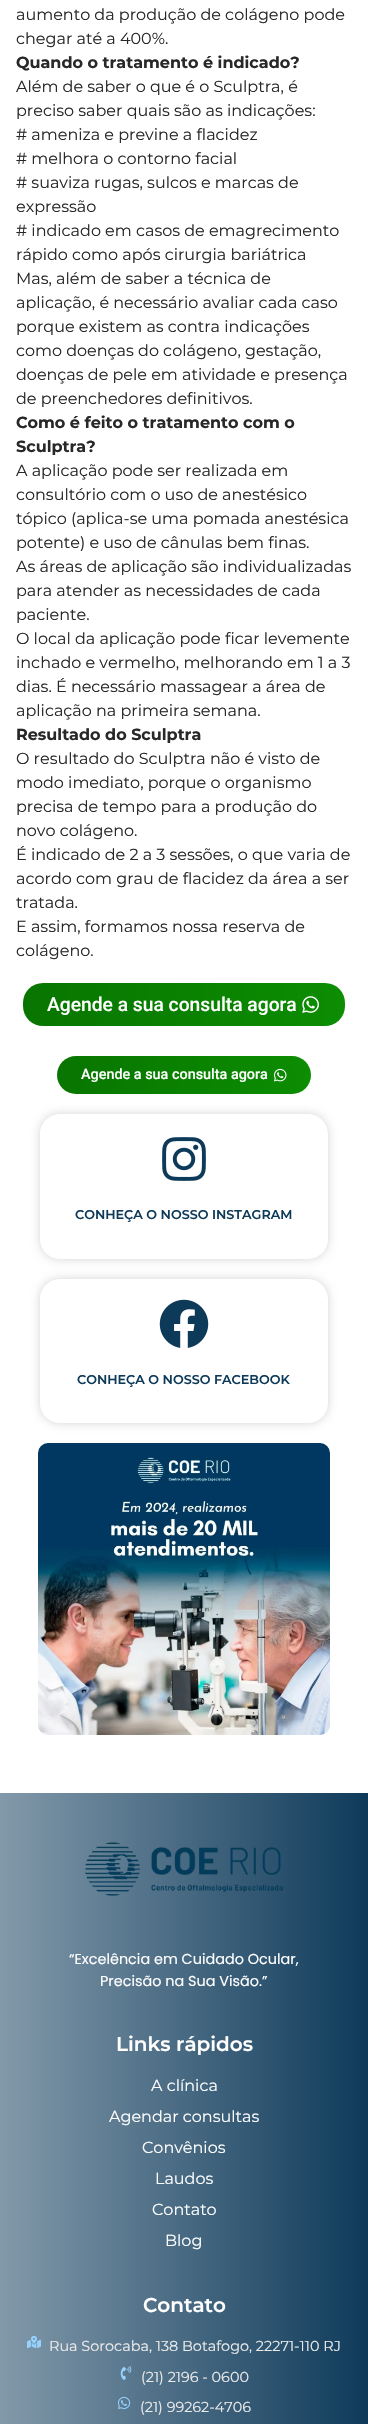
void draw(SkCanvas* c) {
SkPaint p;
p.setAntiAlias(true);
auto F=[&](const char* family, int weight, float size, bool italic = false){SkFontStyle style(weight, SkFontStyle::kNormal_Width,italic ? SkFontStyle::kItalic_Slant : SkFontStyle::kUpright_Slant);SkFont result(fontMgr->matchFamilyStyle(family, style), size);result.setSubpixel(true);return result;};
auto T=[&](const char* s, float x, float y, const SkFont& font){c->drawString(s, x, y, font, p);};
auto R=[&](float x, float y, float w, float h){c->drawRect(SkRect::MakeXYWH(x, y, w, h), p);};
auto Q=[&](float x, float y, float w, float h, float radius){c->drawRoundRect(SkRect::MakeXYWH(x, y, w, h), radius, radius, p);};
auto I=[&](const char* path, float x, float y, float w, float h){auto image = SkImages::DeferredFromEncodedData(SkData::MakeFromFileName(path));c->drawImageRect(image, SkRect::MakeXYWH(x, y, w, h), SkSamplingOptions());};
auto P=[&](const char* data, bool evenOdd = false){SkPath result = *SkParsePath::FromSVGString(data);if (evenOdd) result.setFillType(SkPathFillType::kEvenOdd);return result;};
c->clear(0xffffffff);
auto f1 = F("Montserrat",400,16);
p.setColor(0xff282828);
T("aumento da produção de colágeno pode",16,20,f1);
T("chegar até a 400%.",16,44,f1);
auto f2 = F("Montserrat",700,16);
T("Quando o tratamento é indicado?",16,68,f2);
T("Além de saber o que é o Sculptra, é",16,92,f1);
T("preciso saber quais são as indicações:",16,116,f1);
T("# ameniza e previne a flacidez",16,140,f1);
T("# melhora o contorno facial",16,164,f1);
T("# suaviza rugas, sulcos e marcas de",16,188,f1);
T("expressão",16,212,f1);
T("# indicado em casos de emagrecimento",16,236,f1);
T("rápido como após cirurgia bariátrica",16,260,f1);
T("Mas, além de saber a técnica de",16,284,f1);
T("aplicação, é necessário avaliar cada caso",16,308,f1);
T("porque existem as contra indicações",16,332,f1);
T("como doenças do colágeno, gestação,",16,356,f1);
T("doenças de pele em atividade e presença",16,380,f1);
T("de preenchedores definitivos.",16,404,f1);
T("Como é feito o tratamento com o",16,428,f2);
T("Sculptra?",16,452,f2);
T("A aplicação pode ser realizada em",16,476,f1);
T("consultório com o uso de anestésico",16,500,f1);
T("tópico (aplica-se uma pomada anestésica",16,524,f1);
T("potente) e uso de cânulas bem finas.",16,548,f1);
T("As áreas de aplicação são individualizadas",16,572,f1);
T("para atender as necessidades de cada",16,596,f1);
T("paciente.",16,620,f1);
T("O local da aplicação pode ficar levemente",16,644,f1);
T("inchado e vermelho, melhorando em 1 a 3",16,668,f1);
T("dias. É necessário massagear a área de",16,692,f1);
T("aplicação na primeira semana.",16,716,f1);
T("Resultado do Sculptra",16,740,f2);
T("O resultado do Sculptra não é visto de",16,764,f1);
T("modo imediato, porque o organismo",16,788,f1);
T("precisa de tempo para a produção do",16,812,f1);
T("novo colágeno.",16,836,f1);
T("É indicado de 2 a 3 sessões, o que varia de",16,860,f1);
T("acordo com grau de flacidez da área a ser",16,884,f1);
T("tratada.",16,908,f1);
T("E assim, formamos nossa reserva de",16,932,f1);
T("colágeno.",16,956,f1);
{
const SkColor colors[] = {0xff087500,0xff0c8d02,0xff0c8d02,0xff086201,0xff087500};
const float stops[] = {0,.25,.5,.75,1};
const SkPoint ends[] = {{25,1049}, {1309,960}};
p.setShader(SkGradientShader::MakeLinear(ends, colors, stops, 5, SkTileMode::kClamp));
p.setAlpha(255);
}
Q(23,983,322,43,20);
auto f3 = F("Roboto",500,19.25);
p.setShader(nullptr);
p.setColor(0xffffffff);
T("Agende a sua consulta agora",47,1011,f3);
I("1.png",302,996,17,17);
{
const SkColor colors[] = {0xff087500,0xff0c8d02,0xff0c8d02,0xff086201,0xff087500};
const float stops[] = {0,.25,.5,.75,1};
const SkPoint ends[] = {{58,1110}, {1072,1040}};
p.setShader(SkGradientShader::MakeLinear(ends, colors, stops, 5, SkTileMode::kClamp));
p.setAlpha(255);
}
Q(57,1056,254,38,19);
auto f4 = F("Roboto",500,14.4);
p.setShader(nullptr);
p.setColor(0xffffffff);
T("Agende a sua consulta agora",81,1079,f4);
I("2.png",274,1068,13,14);
c->save();
c->clipPath(P("M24 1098h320v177h-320zm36 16h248c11 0 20 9 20 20v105c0 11-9 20-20 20h-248c-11 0-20-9-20-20v-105c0-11 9-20 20-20z",true),true);
p.setColor(0x2b000000);
p.setMaskFilter(SkMaskFilter::MakeBlur(kNormal_SkBlurStyle, 5));
c->drawRoundRect(SkRect::MakeXYWH(40,1114,288,145),20,20,p);
p.setMaskFilter(nullptr);
c->restore();
I("3.png",162,1137,44,44);
auto f5 = F("Montserrat",600,12.75);
p.setColor(0xff0e3a5a);
T("CONHEÇA O NOSSO INSTAGRAM",75,1219,f5);
c->save();
c->clipPath(P("M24 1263h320v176h-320zm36 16h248c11 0 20 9 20 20v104c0 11-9 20-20 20h-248c-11 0-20-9-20-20v-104c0-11 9-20 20-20z",true),true);
p.setColor(0x2b000000);
p.setMaskFilter(SkMaskFilter::MakeBlur(kNormal_SkBlurStyle, 5));
c->drawRoundRect(SkRect::MakeXYWH(40,1279,288,144),20,20,p);
p.setMaskFilter(nullptr);
c->restore();
I("4.png",159,1299,50,49);
p.setColor(0xff0e3a5a);
T("CONHEÇA O NOSSO FACEBOOK",77,1384,f5);
I("5.png",38,1443,292,292);
{
const SkColor colors[] = {0xff8299aa,0xff0e3a5a};
const float stops[] = {0,1};
const SkPoint ends[] = {{0,2244}, {368,2244}};
p.setShader(SkGradientShader::MakeLinear(ends, colors, stops, 2, SkTileMode::kClamp));
p.setAlpha(255);
}
R(0,1793,368,631);
I("6.png",85,1842,198,54);
auto f6 = F("Poppins",400,14.4);
p.setShader(nullptr);
p.setColor(0xffffffff);
T("“Excelência em Cuidado Ocular,",69,1964,f6);
T("Precisão na Sua Visão.”",100,1986,f6);
auto f7 = F("Montserrat",600,20);
T("Links rápidos",116,2051,f7);
T("A clínica",151,2091,f1);
T("Agendar consultas",109,2122,f1);
T("Convênios",142,2153,f1);
T("Laudos",155,2184,f1);
T("Contato",152,2215,f1);
T("Blog",165,2246,f1);
T("Contato",143,2312,f7);
I("7.png",27,2335,14,14);
auto f8 = F("Montserrat",400,14.4);
p.setColor(0xffebebeb);
T("Rua Sorocaba, 138 Botafogo, 22271-110 RJ",49,2351,f8);
I("8.png",120,2366,12,14);
T("(21) 2196 - 0600",141,2382,f8);
I("9.png",118,2396,13,13);
T("(21) 99262-4706",140,2412,f8);
}
